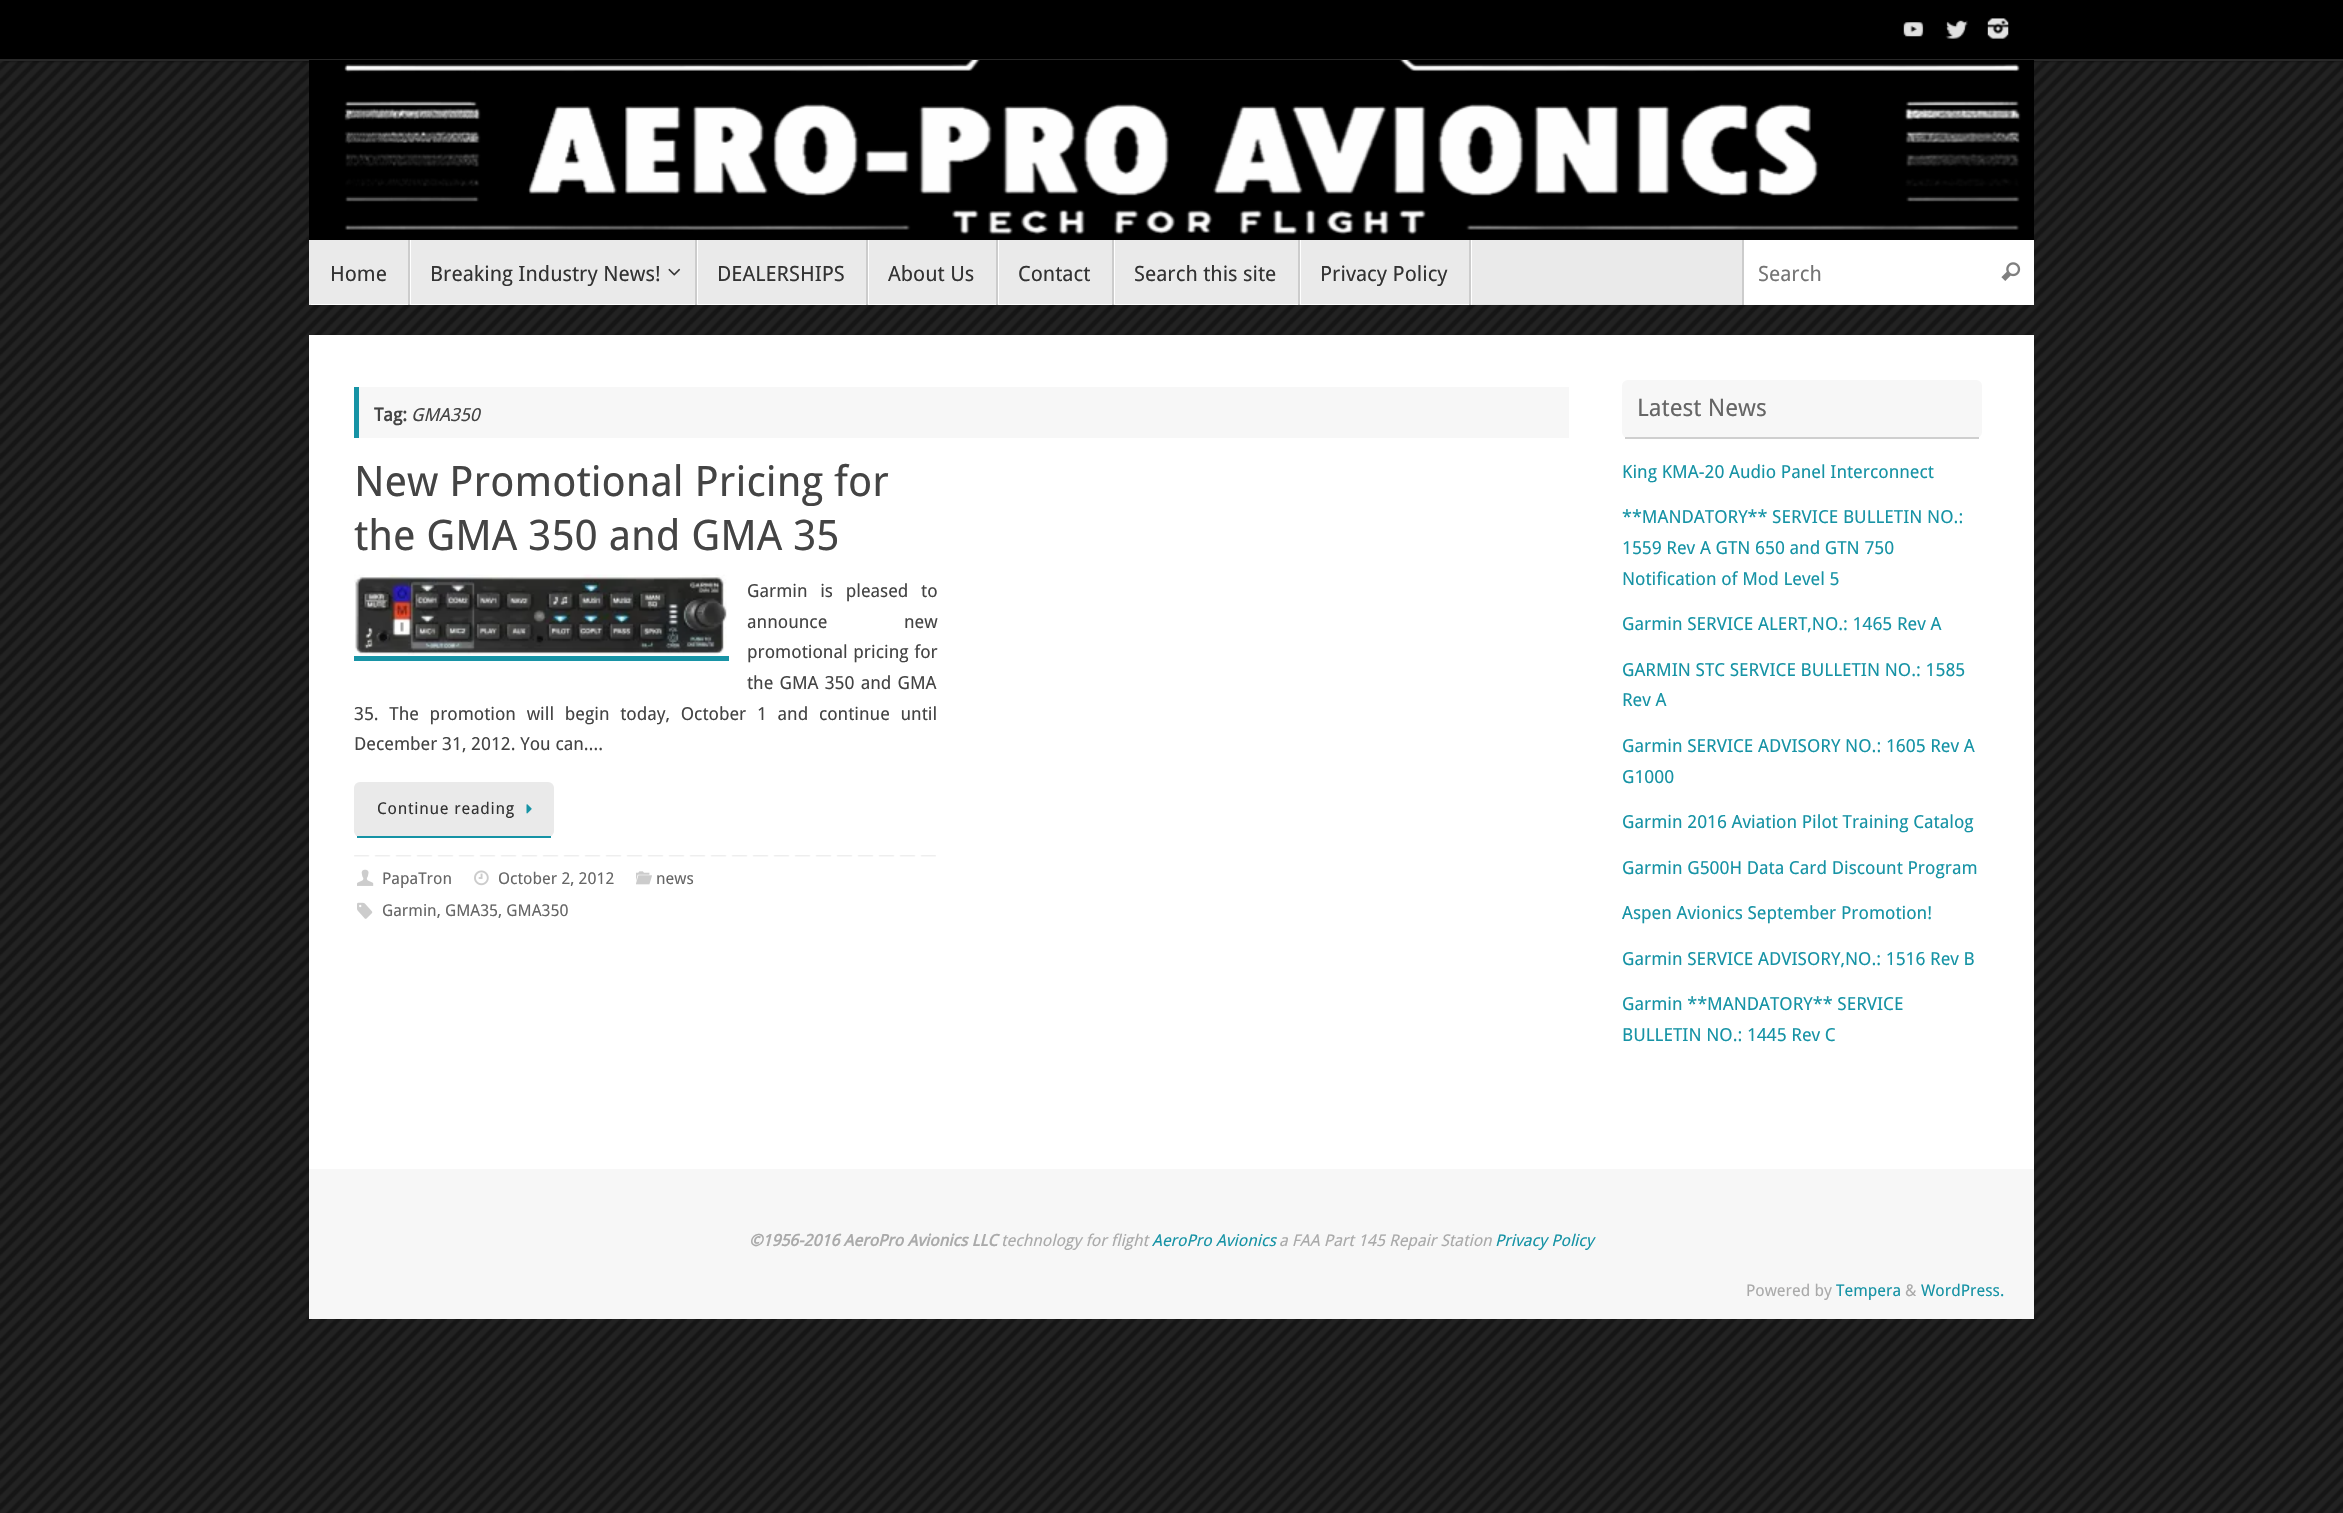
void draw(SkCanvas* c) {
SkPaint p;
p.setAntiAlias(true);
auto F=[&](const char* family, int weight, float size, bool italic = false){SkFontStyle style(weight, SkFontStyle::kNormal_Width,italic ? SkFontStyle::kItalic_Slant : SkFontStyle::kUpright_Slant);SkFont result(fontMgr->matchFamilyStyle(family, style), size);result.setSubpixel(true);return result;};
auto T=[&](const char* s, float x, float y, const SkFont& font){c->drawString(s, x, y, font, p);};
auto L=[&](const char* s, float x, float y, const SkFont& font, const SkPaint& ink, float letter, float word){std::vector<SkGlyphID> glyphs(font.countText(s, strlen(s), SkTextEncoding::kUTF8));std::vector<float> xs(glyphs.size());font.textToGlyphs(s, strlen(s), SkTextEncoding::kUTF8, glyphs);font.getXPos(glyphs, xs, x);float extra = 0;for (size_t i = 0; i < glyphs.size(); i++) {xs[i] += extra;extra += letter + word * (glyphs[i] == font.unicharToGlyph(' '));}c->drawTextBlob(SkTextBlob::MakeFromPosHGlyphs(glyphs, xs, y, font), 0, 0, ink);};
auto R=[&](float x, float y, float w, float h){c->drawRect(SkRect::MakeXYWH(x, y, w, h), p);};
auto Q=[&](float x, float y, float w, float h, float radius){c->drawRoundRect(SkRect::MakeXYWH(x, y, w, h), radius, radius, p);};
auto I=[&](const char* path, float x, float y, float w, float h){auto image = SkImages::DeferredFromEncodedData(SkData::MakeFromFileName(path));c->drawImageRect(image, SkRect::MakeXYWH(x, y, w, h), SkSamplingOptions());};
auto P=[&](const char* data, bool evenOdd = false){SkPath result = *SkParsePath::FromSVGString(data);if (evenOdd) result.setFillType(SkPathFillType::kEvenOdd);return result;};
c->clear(0xffffffff);
I("1.png",0,61,2343,1452);
p.setColor(0xff000000);
p.setMaskFilter(SkMaskFilter::MakeBlur(kNormal_SkBlurStyle, 2));
c->drawRect(SkRect::MakeXYWH(5,0,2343,60),p);
p.setMaskFilter(nullptr);
R(0,0,2343,59);
p.setColor(0xff282828);
R(0,59,2343,2);
I("2.png",1903,22,21,15);
I("3.png",1945,20,23,19);
I("4.png",1987,18,22,21);
I("5.png",309,60,1725,180);
p.setColor(0xffeaeaea);
R(309,240,1433,65);
p.setColor(0xffffffff);
c->drawPath(P("M311 304v1h100v-65h-1v64z"),p);
p.setColor(0xffcccccc);
R(408,240,2,65);
auto f1 = F("Droid Sans",400,21);
p.setColor(0xff333333);
T("Home",330,281,f1);
p.setColor(0xffffffff);
c->drawPath(P("M411 304v1h287v-65h-2v64z"),p);
p.setColor(0xffcccccc);
R(695,240,2,65);
p.setColor(0xff333333);
T("Breaking Industry News!",430,281,f1);
I("6.png",668,268,13,8);
p.setColor(0xffffffff);
c->drawPath(P("M698 304v1h171v-65h-2v64z"),p);
p.setColor(0xffcccccc);
R(866,240,2,65);
p.setColor(0xff333333);
T("DEALERSHIPS",717,281,f1);
p.setColor(0xffffffff);
c->drawPath(P("M869 304v1h130v-65h-1v64z"),p);
p.setColor(0xffcccccc);
R(996,240,2,65);
p.setColor(0xff333333);
T("About Us",888,281,f1);
p.setColor(0xffffffff);
c->drawPath(P("M999 304v1h116v-65h-2v64z"),p);
p.setColor(0xffcccccc);
R(1112,240,2,65);
p.setColor(0xff333333);
T("Contact",1018,281,f1);
p.setColor(0xffffffff);
c->drawPath(P("M1115 304v1h186v-65h-2v64z"),p);
p.setColor(0xffcccccc);
R(1298,240,2,65);
p.setColor(0xff333333);
T("Search this site",1134,281,f1);
p.setColor(0xffffffff);
c->drawPath(P("M1301 304v1h171v-65h-2v64z"),p);
p.setColor(0xffcccccc);
R(1469,240,2,65);
p.setColor(0xff333333);
T("Privacy Policy",1320,281,f1);
p.setColor(0xffffffff);
R(1744,240,290,65);
p.setColor(0xffcccccc);
R(1742,240,2,65);
p.setColor(0xff757575);
T("Search",1758,281,f1);
I("7.png",2001,262,20,19);
p.setColor(0xffffffff);
R(309,335,1725,834);
p.setColor(0xfff7f7f7);
R(359,387,1210,51);
p.setColor(0xff1693a5);
R(354,387,5,51);
auto f2 = F("Droid Sans",700,18);
p.setColor(0xff444444);
T("Tag:",374,421,f2);
auto f3 = F("Droid Sans",400,18,true);
T("GMA350",411,421,f3);
auto f4 = F("Droid Sans",400,42);
T("New Promotional Pricing for",354,496,f4);
T("the GMA 350 and GMA 35",354,550,f4);
p.setColor(0xff1894a6);
R(354,656,375,5);
I("8.png",354,574,373,81);
auto f5 = F("Droid Sans",400,18);
p.setColor(0xff444444);
L("Garmin is pleased to",747,597,f5,p,0,8);
L("announce new",747,628,f5,p,0,72);
L("promotional pricing for",747,658,f5,p,0,1);
L("the GMA 350 and GMA",747,689,f5,p,0,1.5);
L("35. The promotion will begin today, October 1 and continue until",354,720,f5,p,0,6);
T("December 31, 2012. You can….",354,750,f5);
p.setColor(0xffeaeaea);
Q(354,782,200,55,6);
p.setColor(0xff1693a5);
R(357,836,194,2);
auto f6 = F("Droid Sans",400,16.25);
p.setColor(0xff333333);
L("Continue reading",377,814,f6,p,.75,0);
I("9.png",526,804,6,10);
I("10.png",354,855,582,2);
I("11.png",357,869,17,17);
p.setColor(0xff666666);
T("PapaTron",382,884,f6);
I("12.png",474,870,15,16);
T("October 2, 2012",498,884,f6);
I("13.png",636,871,16,14);
T("news",656,884,f6);
I("14.png",357,902,16,17);
T("Garmin, GMA35, GMA350",382,916,f6);
p.setColor(0xfff7f7f7);
Q(1622,380,360,58,6);
p.setColor(0xffcfcfcf);
R(1625,437,354,2);
auto f7 = F("Droid Sans",400,24);
p.setColor(0xff666666);
T("Latest News",1637,416,f7);
p.setColor(0xff1693a5);
T("King KMA-20 Audio Panel Interconnect",1622,478,f5);
T("**MANDATORY** SERVICE BULLETIN NO.:",1622,523,f5);
T("1559 Rev A GTN 650 and GTN 750",1622,554,f5);
T("Notification of Mod Level 5",1622,585,f5);
T("Garmin SERVICE ALERT,NO.: 1465 Rev A",1622,630,f5);
T("GARMIN STC SERVICE BULLETIN NO.: 1585",1622,676,f5);
T("Rev A",1622,706,f5);
T("Garmin SERVICE ADVISORY NO.: 1605 Rev A",1622,752,f5);
T("G1000",1622,783,f5);
T("Garmin 2016 Aviation Pilot Training Catalog",1622,828,f5);
T("Garmin G500H Data Card Discount Program",1622,874,f5);
T("Aspen Avionics September Promotion!",1622,919,f5);
T("Garmin SERVICE ADVISORY,NO.: 1516 Rev B",1622,965,f5);
T("Garmin **MANDATORY** SERVICE",1622,1010,f5);
T("BULLETIN NO.: 1445 Rev C",1622,1041,f5);
p.setColor(0xfff7f7f7);
R(309,1169,1725,150);
auto f8 = F("Droid Sans",700,16.25,true);
p.setColor(0xffaaaaaa);
T("©1956-2016 AeroPro Avionics LLC",749,1246,f8);
auto f9 = F("Droid Sans",400,16.25,true);
T("technology for flight",1001,1246,f9);
p.setColor(0xff1693a5);
T("AeroPro Avionics",1152,1246,f9);
p.setColor(0xffaaaaaa);
T("a FAA Part 145 Repair Station",1279,1246,f9);
p.setColor(0xff1693a5);
T("Privacy Policy",1495,1246,f9);
p.setColor(0xffaaaaaa);
T("Powered by",1746,1296,f6);
p.setColor(0xff1693a5);
T("Tempera",1836,1296,f6);
p.setColor(0xffaaaaaa);
T("&",1905,1296,f6);
p.setColor(0xff1693a5);
T("WordPress.",1921,1296,f6);
}
